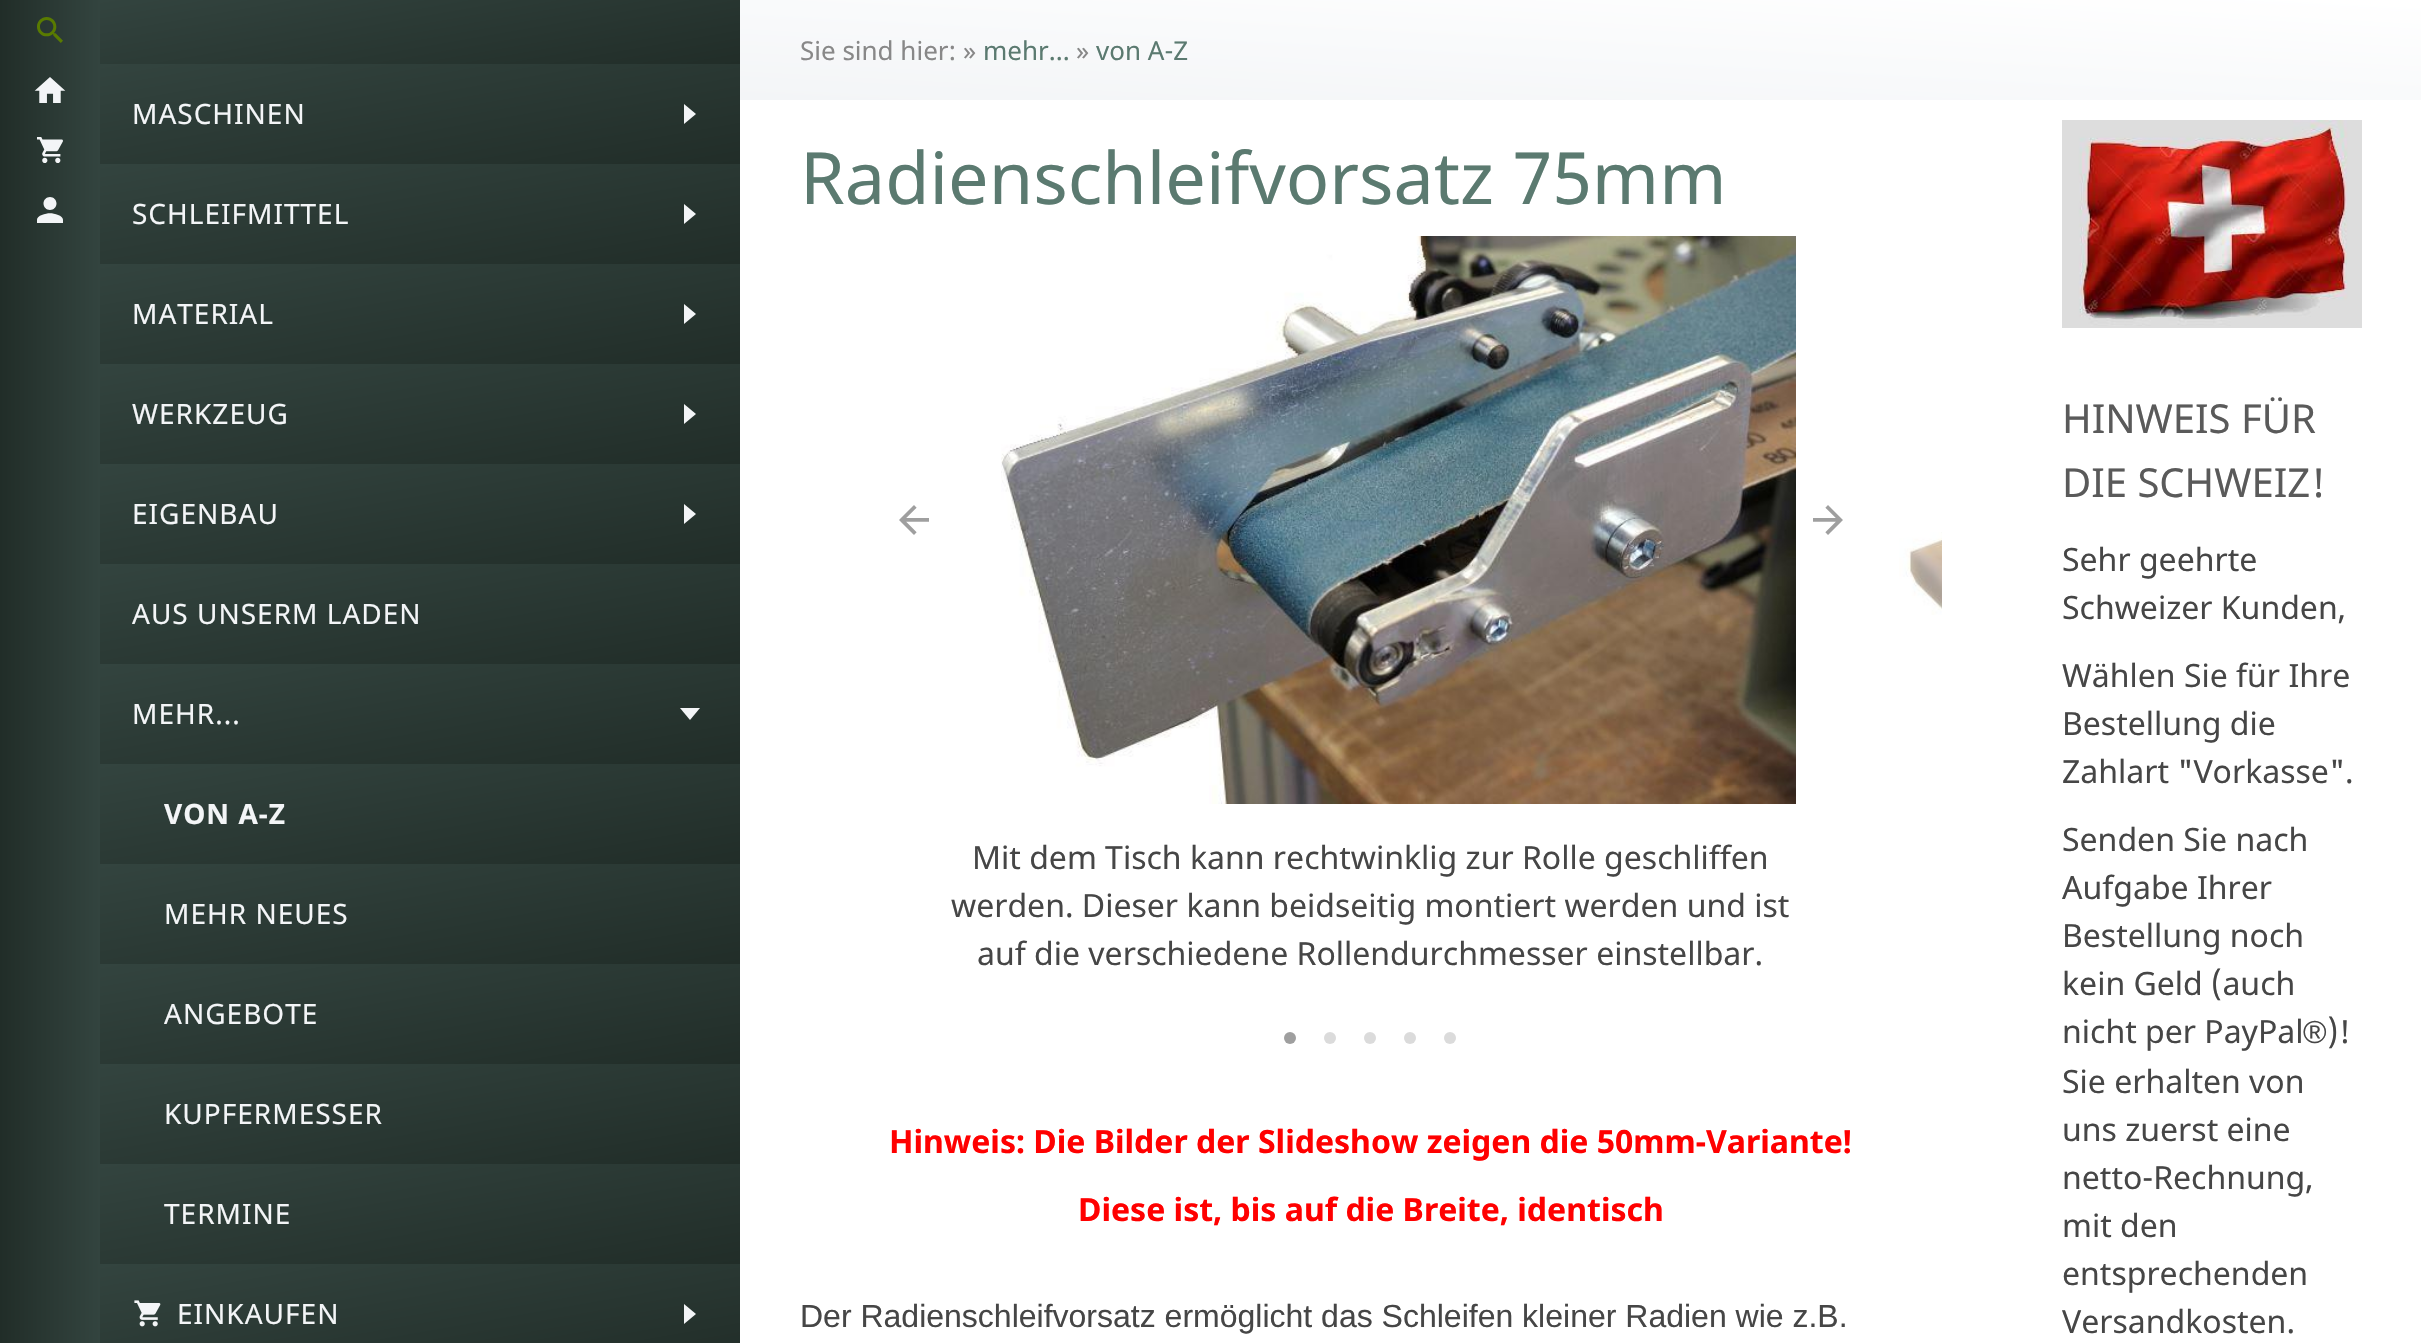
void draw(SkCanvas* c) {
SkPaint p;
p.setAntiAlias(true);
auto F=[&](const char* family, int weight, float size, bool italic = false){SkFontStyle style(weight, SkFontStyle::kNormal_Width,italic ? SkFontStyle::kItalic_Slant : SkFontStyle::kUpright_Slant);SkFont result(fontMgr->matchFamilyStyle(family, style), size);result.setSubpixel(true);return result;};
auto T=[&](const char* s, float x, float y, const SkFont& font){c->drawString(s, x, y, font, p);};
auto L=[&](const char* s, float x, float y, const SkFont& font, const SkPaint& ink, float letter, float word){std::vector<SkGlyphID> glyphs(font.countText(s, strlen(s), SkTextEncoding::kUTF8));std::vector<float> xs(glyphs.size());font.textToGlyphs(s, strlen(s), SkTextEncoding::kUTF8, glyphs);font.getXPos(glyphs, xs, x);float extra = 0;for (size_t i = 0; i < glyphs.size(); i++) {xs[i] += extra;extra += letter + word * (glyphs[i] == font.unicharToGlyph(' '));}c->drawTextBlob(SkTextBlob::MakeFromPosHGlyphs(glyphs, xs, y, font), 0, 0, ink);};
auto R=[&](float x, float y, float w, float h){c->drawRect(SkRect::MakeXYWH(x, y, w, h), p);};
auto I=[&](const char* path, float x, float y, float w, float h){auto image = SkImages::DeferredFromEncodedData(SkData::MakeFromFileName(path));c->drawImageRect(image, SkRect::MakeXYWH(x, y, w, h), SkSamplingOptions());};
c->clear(0xffffffff);
{
const SkColor colors[] = {0xff33443f,0xff212d28};
const float stops[] = {0,1};
const SkPoint ends[] = {{100,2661}, {0,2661}};
p.setShader(SkGradientShader::MakeLinear(ends, colors, stops, 2, SkTileMode::kClamp));
p.setAlpha(255);
}
R(0,0,100,1343);
I("1.png",37,17,26,26);
I("2.png",34,77,32,26);
I("3.png",37,137,26,26);
I("4.png",37,197,26,26);
{
const SkColor colors[] = {0xff33443f,0xff212d28};
const float stops[] = {0,1};
const SkPoint ends[] = {{405,-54}, {435,118}};
p.setShader(SkGradientShader::MakeLinear(ends, colors, stops, 2, SkTileMode::kClamp));
p.setAlpha(255);
}
R(100,0,640,64);
{
const SkColor colors[] = {0xff33443f,0xff212d28};
const float stops[] = {0,1};
const SkPoint ends[] = {{402,11}, {438,217}};
p.setShader(SkGradientShader::MakeLinear(ends, colors, stops, 2, SkTileMode::kClamp));
p.setAlpha(255);
}
R(100,64,640,100);
auto f1 = F("Noto Sans",400,28);
p.setShader(nullptr);
p.setColor(0xfff3f5f7);
L("MASCHINEN",132,124,f1,p,1,0);
I("5.png",684,104,12,20);
{
const SkColor colors[] = {0xff33443f,0xff212d28};
const float stops[] = {0,1};
const SkPoint ends[] = {{402,111}, {438,317}};
p.setShader(SkGradientShader::MakeLinear(ends, colors, stops, 2, SkTileMode::kClamp));
p.setAlpha(255);
}
R(100,164,640,100);
p.setShader(nullptr);
p.setColor(0xfff3f5f7);
L("SCHLEIFMITTEL",132,224,f1,p,1,0);
I("5.png",684,204,12,20);
{
const SkColor colors[] = {0xff33443f,0xff212d28};
const float stops[] = {0,1};
const SkPoint ends[] = {{402,211}, {438,417}};
p.setShader(SkGradientShader::MakeLinear(ends, colors, stops, 2, SkTileMode::kClamp));
p.setAlpha(255);
}
R(100,264,640,100);
p.setShader(nullptr);
p.setColor(0xfff3f5f7);
L("MATERIAL",132,324,f1,p,1,0);
I("5.png",684,304,12,20);
{
const SkColor colors[] = {0xff33443f,0xff212d28};
const float stops[] = {0,1};
const SkPoint ends[] = {{402,311}, {438,517}};
p.setShader(SkGradientShader::MakeLinear(ends, colors, stops, 2, SkTileMode::kClamp));
p.setAlpha(255);
}
R(100,364,640,100);
p.setShader(nullptr);
p.setColor(0xfff3f5f7);
L("WERKZEUG",132,424,f1,p,1,0);
I("5.png",684,404,12,20);
{
const SkColor colors[] = {0xff33443f,0xff212d28};
const float stops[] = {0,1};
const SkPoint ends[] = {{402,411}, {438,617}};
p.setShader(SkGradientShader::MakeLinear(ends, colors, stops, 2, SkTileMode::kClamp));
p.setAlpha(255);
}
R(100,464,640,100);
p.setShader(nullptr);
p.setColor(0xfff3f5f7);
L("EIGENBAU",132,524,f1,p,1,0);
I("6.png",684,504,12,20);
{
const SkColor colors[] = {0xff33443f,0xff212d28};
const float stops[] = {0,1};
const SkPoint ends[] = {{402,511}, {438,717}};
p.setShader(SkGradientShader::MakeLinear(ends, colors, stops, 2, SkTileMode::kClamp));
p.setAlpha(255);
}
R(100,564,640,100);
p.setShader(nullptr);
p.setColor(0xfff3f5f7);
L("AUS UNSERM LADEN",132,624,f1,p,1,0);
{
const SkColor colors[] = {0xff33443f,0xff212d28};
const float stops[] = {0,1};
const SkPoint ends[] = {{402,611}, {438,817}};
p.setShader(SkGradientShader::MakeLinear(ends, colors, stops, 2, SkTileMode::kClamp));
p.setAlpha(255);
}
R(100,664,640,100);
p.setShader(nullptr);
p.setColor(0xfff3f5f7);
L("MEHR...",132,724,f1,p,1,0);
I("7.png",680,708,20,12);
{
const SkColor colors[] = {0xff33443f,0xff212d28};
const float stops[] = {0,1};
const SkPoint ends[] = {{402,711}, {438,917}};
p.setShader(SkGradientShader::MakeLinear(ends, colors, stops, 2, SkTileMode::kClamp));
p.setAlpha(255);
}
R(100,764,640,100);
auto f2 = F("Noto Sans",700,28);
p.setShader(nullptr);
p.setColor(0xfff3f5f7);
L("VON A-Z",164,824,f2,p,1,0);
{
const SkColor colors[] = {0xff33443f,0xff212d28};
const float stops[] = {0,1};
const SkPoint ends[] = {{402,811}, {438,1017}};
p.setShader(SkGradientShader::MakeLinear(ends, colors, stops, 2, SkTileMode::kClamp));
p.setAlpha(255);
}
R(100,864,640,100);
p.setShader(nullptr);
p.setColor(0xfff3f5f7);
L("MEHR NEUES",164,924,f1,p,1,0);
{
const SkColor colors[] = {0xff33443f,0xff212d28};
const float stops[] = {0,1};
const SkPoint ends[] = {{402,911}, {438,1117}};
p.setShader(SkGradientShader::MakeLinear(ends, colors, stops, 2, SkTileMode::kClamp));
p.setAlpha(255);
}
R(100,964,640,100);
p.setShader(nullptr);
p.setColor(0xfff3f5f7);
L("ANGEBOTE",164,1024,f1,p,1,0);
{
const SkColor colors[] = {0xff33443f,0xff212d28};
const float stops[] = {0,1};
const SkPoint ends[] = {{402,1011}, {438,1217}};
p.setShader(SkGradientShader::MakeLinear(ends, colors, stops, 2, SkTileMode::kClamp));
p.setAlpha(255);
}
R(100,1064,640,100);
p.setShader(nullptr);
p.setColor(0xfff3f5f7);
L("KUPFERMESSER",164,1124,f1,p,1,0);
{
const SkColor colors[] = {0xff33443f,0xff212d28};
const float stops[] = {0,1};
const SkPoint ends[] = {{402,1111}, {438,1317}};
p.setShader(SkGradientShader::MakeLinear(ends, colors, stops, 2, SkTileMode::kClamp));
p.setAlpha(255);
}
R(100,1164,640,100);
p.setShader(nullptr);
p.setColor(0xfff3f5f7);
L("TERMINE",164,1224,f1,p,1,0);
{
const SkColor colors[] = {0xff33443f,0xff212d28};
const float stops[] = {0,1};
const SkPoint ends[] = {{402,1211}, {438,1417}};
p.setShader(SkGradientShader::MakeLinear(ends, colors, stops, 2, SkTileMode::kClamp));
p.setAlpha(255);
}
R(100,1264,640,79);
I("8.png",134,1300,27,27);
p.setShader(nullptr);
p.setColor(0xfff3f5f7);
L("EINKAUFEN",177,1324,f1,p,1,0);
I("5.png",684,1304,12,20);
{
const SkColor colors[] = {0xfff3f5f7,0xffffffff};
const float stops[] = {0,1};
const SkPoint ends[] = {{1576,144}, {1586,-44}};
p.setShader(SkGradientShader::MakeLinear(ends, colors, stops, 2, SkTileMode::kClamp));
p.setAlpha(255);
}
R(740,0,1681,100);
auto f3 = F("Noto Sans",400,26);
p.setShader(nullptr);
p.setColor(0xff888888);
T("Sie sind hier: »",800,60,f3);
p.setColor(0xff5b7a70);
T("mehr...",983,60,f3);
p.setColor(0xff888888);
T("»",1076,60,f3);
p.setColor(0xff5b7a70);
T("von A-Z",1096,60,f3);
auto f4 = F("Noto Sans",400,72);
T("Radienschleifvorsatz 75mm",800,204,f4);
I("9.png",899,505,30,30);
I("10.png",1813,505,30,30);
I("11.png",1899,532,43,83);
I("12.png",1001,236,795,568);
auto f5 = F("Noto Sans",400,32);
p.setColor(0xff464646);
T("Mit dem Tisch kann rechtwinklig zur Rolle geschliffen",972,869,f5);
T("werden. Dieser kann beidseitig montiert werden und ist",951,917,f5);
T("auf die verschiedene Rollendurchmesser einstellbar.",977,965,f5);
I("13.png",1284,1032,12,12);
I("14.png",1324,1032,12,12);
I("14.png",1364,1032,12,12);
I("14.png",1404,1032,12,12);
I("14.png",1444,1032,12,12);
auto f6 = F("Noto Sans",700,32);
p.setColor(0xffff0000);
T("Hinweis: Die Bilder der Slideshow zeigen die 50mm-Variante!",889,1153,f6);
T("Diese ist, bis auf die Breite, identisch",1078,1221,f6);
auto f7 = F("Liberation Sans",400,32);
p.setColor(0xff464646);
T("Der Radienschleifvorsatz ermöglicht das Schleifen kleiner Radien wie z.B.",800,1327,f7);
I("15.png",2062,120,300,208);
auto f8 = F("Noto Sans",400,40);
p.setColor(0xff5a5a5a);
T("HINWEIS FÜR",2062,433,f8);
T("DIE SCHWEIZ!",2062,497,f8);
p.setColor(0xff464646);
T("Sehr geehrte",2062,571,f5);
T("Schweizer Kunden,",2062,619,f5);
T("Wählen Sie für Ihre",2062,687,f5);
T("Bestellung die",2062,735,f5);
T("Zahlart \"Vorkasse\".",2062,783,f5);
T("Senden Sie nach",2062,851,f5);
T("Aufgabe Ihrer",2062,899,f5);
T("Bestellung noch",2062,947,f5);
T("kein Geld (auch",2062,995,f5);
T("nicht per PayPal",2062,1043,f5);
T("®",2303,1043,f7);
T(")!",2327,1043,f5);
T("Sie erhalten von",2062,1093,f5);
T("uns zuerst eine",2062,1141,f5);
T("netto-Rechnung,",2062,1189,f5);
T("mit den",2062,1237,f5);
T("entsprechenden",2062,1285,f5);
T("Versandkosten.",2062,1333,f5);
}
